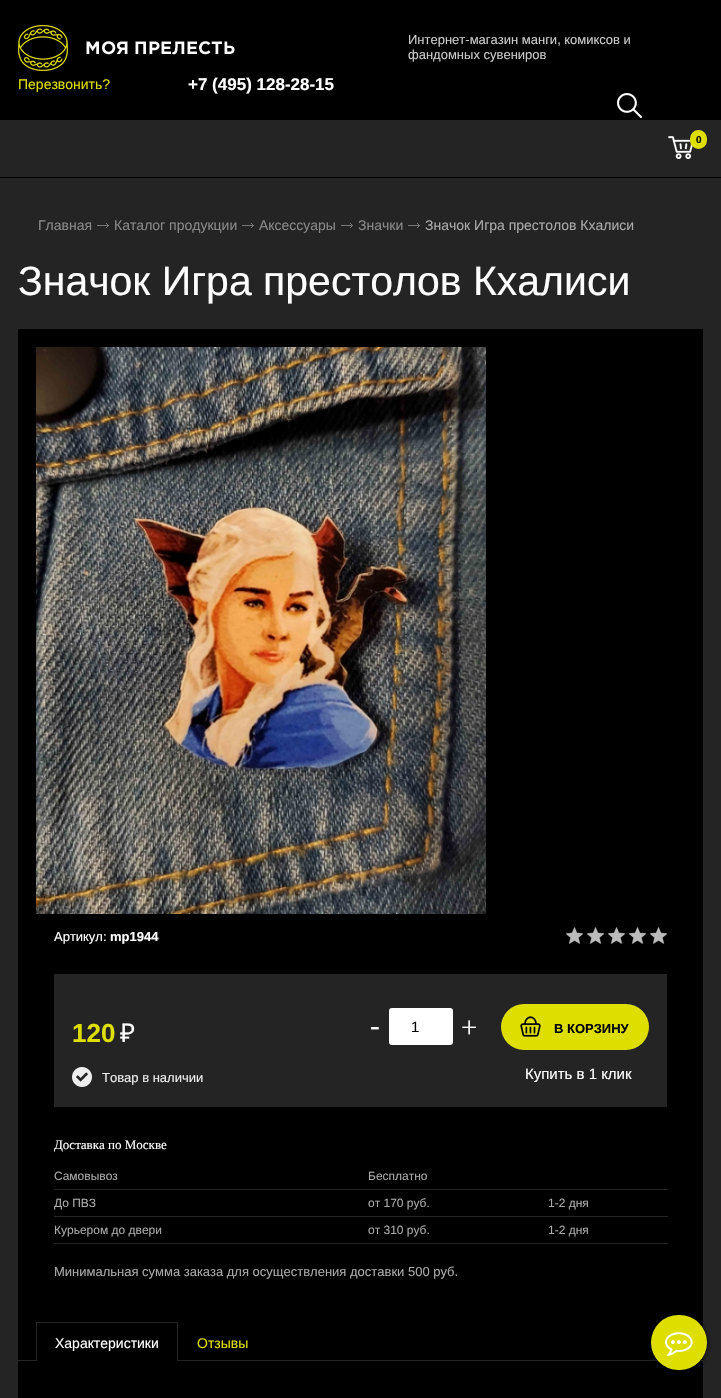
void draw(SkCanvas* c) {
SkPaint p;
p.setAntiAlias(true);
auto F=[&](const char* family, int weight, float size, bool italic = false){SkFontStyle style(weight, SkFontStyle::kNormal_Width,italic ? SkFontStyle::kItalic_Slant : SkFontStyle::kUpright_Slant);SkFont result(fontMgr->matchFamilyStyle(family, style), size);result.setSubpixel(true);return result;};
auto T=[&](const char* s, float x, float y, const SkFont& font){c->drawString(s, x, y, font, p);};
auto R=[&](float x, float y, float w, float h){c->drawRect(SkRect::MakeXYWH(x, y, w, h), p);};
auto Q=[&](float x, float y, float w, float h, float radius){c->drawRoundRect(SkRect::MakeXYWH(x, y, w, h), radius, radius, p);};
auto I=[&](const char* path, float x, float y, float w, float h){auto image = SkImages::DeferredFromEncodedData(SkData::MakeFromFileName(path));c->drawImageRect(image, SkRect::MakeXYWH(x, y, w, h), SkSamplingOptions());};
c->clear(0xff242424);
p.setColor(0xff000000);
R(0,0,721,120);
I("1.png",18,25,217,46);
auto f1 = F("Liberation Sans",400,13);
p.setColor(0xffcccccc);
T("Интернет-магазин манги, комиксов и",408,44,f1);
T("фандомных сувениров",408,59,f1);
auto f2 = F("Liberation Sans",400,14);
p.setColor(0xffdede01);
T("Перезвонить?",18,89,f2);
auto f3 = F("Liberation Sans",700,17);
p.setColor(0xffffffff);
T("+7 (495) 128-28-15",188,90,f3);
p.setColor(0xff000000);
R(0,177,721,1);
I("2.png",617,93,25,25);
I("3.png",668,136,25,23);
p.setColor(0xffdede01);
c->drawRoundRect(SkRect::MakeXYWH(691,131,15,17),7.5,7.5,p);
p.setStroke(true);
p.setStrokeWidth(2);
c->drawRoundRect(SkRect::MakeXYWH(691,131,15,17),7.5,7.5,p);
auto f4 = F("Liberation Sans",700,10);
p.setStroke(false);
p.setColor(0xff000000);
T("0",696,143,f4);
p.setColor(0xff888888);
T("Главная",38,230,f2);
I("4.png",97,223,12,5);
T("Каталог продукции",114,230,f2);
I("4.png",242,223,12,5);
T("Аксессуары",259,230,f2);
I("4.png",341,223,12,5);
T("Значки",358,230,f2);
I("4.png",408,223,12,5);
p.setColor(0xffaaaaaa);
T("Значок Игра престолов Кхалиси",425,230,f2);
auto f5 = F("Liberation Sans",400,41);
p.setColor(0xffffffff);
T("Значок Игра престолов Кхалиси",18,295,f5);
p.setColor(0xff000000);
R(18,329,685,1069);
I("5.png",36,347,450,567);
p.setColor(0xffffffff);
T("Артикул:",54,941,f1);
auto f6 = F("Liberation Sans",700,13);
T("mp1944",110,941,f6);
I("6.png",566,927,101,17);
p.setColor(0xff242424);
R(54,974,613,133);
auto f7 = F("Liberation Sans",700,26);
p.setColor(0xffdede01);
T("120",72,1042,f7);
auto f8 = F("Noto Sans",400,26);
p.setColor(0xffffffff);
T("₽",120,1042,f8);
I("7.png",72,1067,20,20);
p.setColor(0xffeeeeee);
T("Товар в наличии",102,1082,f1);
auto f9 = F("Liberation Serif",400,29);
p.setColor(0xffffffff);
T("-",370,1035,f9);
c->drawRoundRect(SkRect::MakeXYWH(390,1009,62,35),2,2,p);
p.setStroke(true);
c->drawRoundRect(SkRect::MakeXYWH(390,1009,62,35),2,2,p);
auto f10 = F("Liberation Sans",400,15);
p.setStroke(false);
p.setColor(0xff000000);
T("1",411,1032,f10);
p.setColor(0xffffffff);
T("+",461,1037,f9);
p.setColor(0xffdede01);
Q(501,1004,148,46,23);
I("8.png",520,1016,21,21);
p.setColor(0xff000000);
T("В КОРЗИНУ",554,1033,f6);
p.setColor(0xffffffff);
T("Купить в 1 клик",525,1079,f10);
auto f11 = F("Liberation Serif",400,13);
T("Доставка по Москве",54,1149,f11);
auto f12 = F("Liberation Sans",400,12);
p.setColor(0xffaaaaaa);
T("Самовывоз",54,1180,f12);
T("Бесплатно",368,1180,f12);
p.setColor(0xff242424);
R(54,1189,614,1);
p.setColor(0xffaaaaaa);
T("До ПВЗ",54,1207,f12);
T("от 170 руб.",368,1207,f12);
p.setColor(0xff242424);
R(54,1216,614,1);
p.setColor(0xffaaaaaa);
T("1-2 дня",548,1207,f12);
T("Курьером до двери",54,1234,f12);
T("от 310 руб.",368,1234,f12);
p.setColor(0xff242424);
R(54,1243,614,1);
p.setColor(0xffaaaaaa);
T("1-2 дня",548,1234,f12);
T("Минимальная сумма заказа для осуществления доставки 500 руб.",54,1276,f1);
p.setColor(0xff242424);
R(36,1322,142,1);
R(18,1360,685,1);
R(177,1322,1,39);
R(36,1322,1,39);
p.setColor(0xff000000);
R(37,1360,140,1);
p.setColor(0xffffffff);
T("Характеристики",55,1348,f2);
p.setColor(0xffdede01);
T("Отзывы",197,1348,f2);
p.setColor(0x80000000);
p.setMaskFilter(SkMaskFilter::MakeBlur(kNormal_SkBlurStyle, 2.5));
c->drawRoundRect(SkRect::MakeXYWH(652,1316,56,55),27.5,27.5,p);
p.setMaskFilter(nullptr);
p.setColor(0xffdede01);
Q(651,1315,56,55,27.5);
I("9.png",665,1332,28,24);
}
